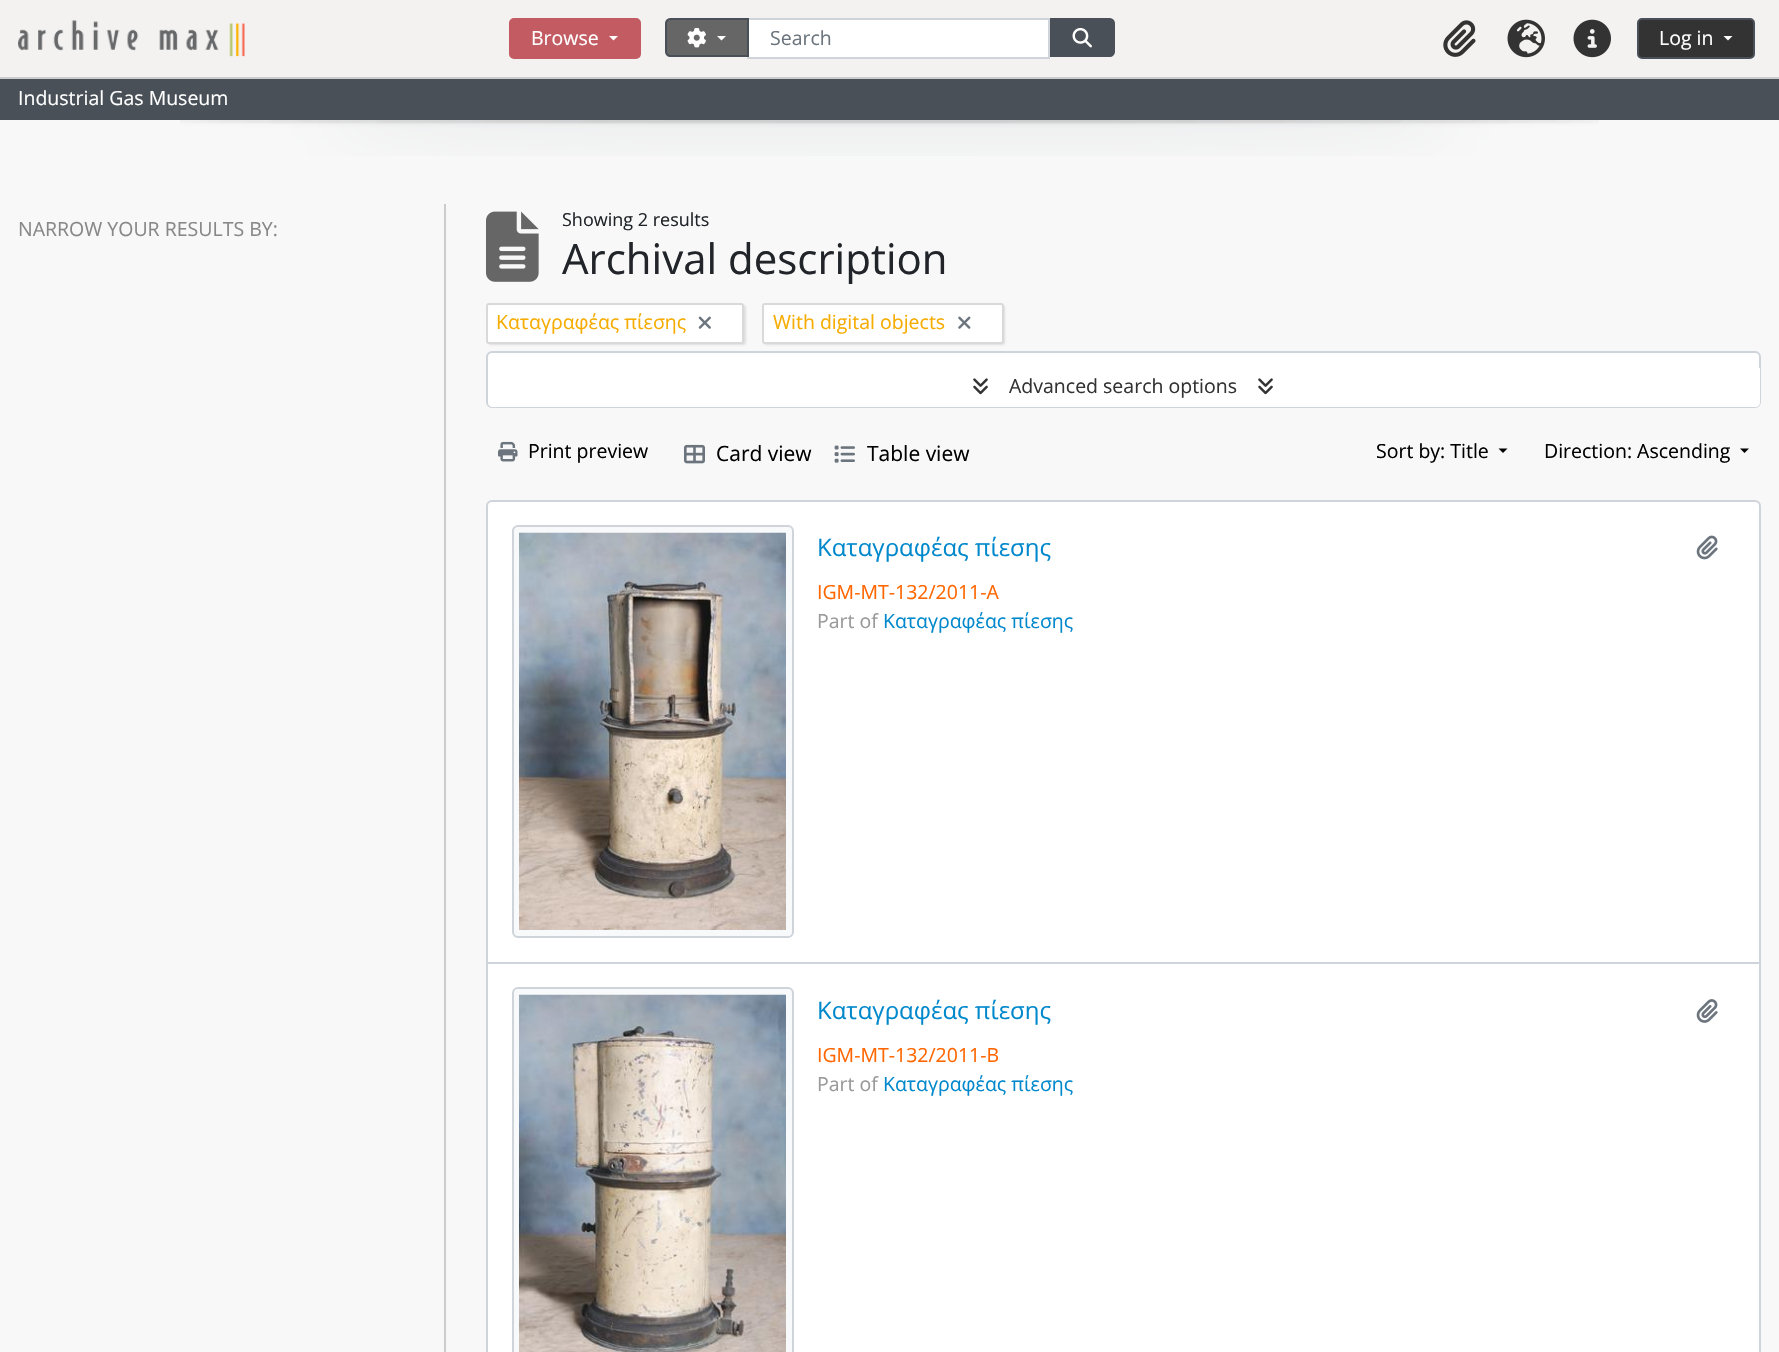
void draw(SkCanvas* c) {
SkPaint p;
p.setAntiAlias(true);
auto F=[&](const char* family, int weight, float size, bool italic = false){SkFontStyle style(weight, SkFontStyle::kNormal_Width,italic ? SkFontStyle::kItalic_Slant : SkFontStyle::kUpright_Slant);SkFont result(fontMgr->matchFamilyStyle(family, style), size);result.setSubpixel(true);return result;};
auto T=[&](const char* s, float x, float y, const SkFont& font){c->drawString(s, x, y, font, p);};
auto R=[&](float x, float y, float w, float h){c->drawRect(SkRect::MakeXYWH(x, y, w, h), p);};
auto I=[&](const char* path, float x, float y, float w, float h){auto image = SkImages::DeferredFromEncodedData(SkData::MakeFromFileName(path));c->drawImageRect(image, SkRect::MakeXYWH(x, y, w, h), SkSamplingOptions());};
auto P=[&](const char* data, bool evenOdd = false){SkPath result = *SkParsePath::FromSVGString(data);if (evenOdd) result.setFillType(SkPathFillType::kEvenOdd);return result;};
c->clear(0xfff8f8f8);
p.setColor(0xfff4f2f1);
R(0,0,1779,77);
p.setColor(0xffcccccc);
R(0,77,1779,2);
I("1.png",18,20,227,37);
p.setColor(0xffc25b62);
c->drawRoundRect(SkRect::MakeXYWH(510,19,130,39),4,4,p);
p.setStroke(true);
p.setStrokeWidth(2);
c->drawRoundRect(SkRect::MakeXYWH(510,19,130,39),4,4,p);
auto f1 = F("Open Sans",400,19.5);
p.setStroke(false);
p.setColor(0xffffffff);
T("Browse",531,45,f1);
c->drawPath(P("M609 36h9l-4.5 4.5z"),p);
c->drawRect(SkRect::MakeXYWH(748,19,301,39),p);
p.setStroke(true);
p.setColor(0xffced4da);
c->drawRect(SkRect::MakeXYWH(748,19,301,39),p);
p.setStroke(false);
p.setColor(0xff666666);
c->drawPath(P("M670 19h78v37h-78c-2 0-4-2-4-4v-29c0-2 2-4 4-4z"),p);
p.setStroke(true);
p.setColor(0xff495057);
c->drawPath(P("M670 19h78v37h-78c-2 0-4-2-4-4v-29c0-2 2-4 4-4z"),p);
I("2.png",687,27,19,21);
p.setStroke(false);
p.setColor(0xffffffff);
c->drawPath(P("M717 36h9l-4.5 4.5z"),p);
p.setColor(0xff6c757d);
T("Search",770,45,f1);
p.setColor(0xff495057);
c->drawPath(P("M1051 19h59c2 0 4 2 4 4v29c0 2-2 4-4 4h-59z"),p);
p.setStroke(true);
c->drawPath(P("M1051 19h59c2 0 4 2 4 4v29c0 2-2 4-4 4h-59z"),p);
I("3.png",1072,27,20,21);
I("4.png",1443,20,33,37);
I("5.png",1507,19,38,39);
I("6.png",1573,19,38,39);
p.setStroke(false);
p.setColor(0xff333333);
c->drawRoundRect(SkRect::MakeXYWH(1638,19,116,39),4,4,p);
p.setStroke(true);
p.setColor(0xff495057);
c->drawRoundRect(SkRect::MakeXYWH(1638,19,116,39),4,4,p);
p.setStroke(false);
p.setColor(0xffffffff);
T("Log in",1659,45,f1);
c->drawPath(P("M1723.5 36h9l-4.5 4.5z"),p);
p.setColor(0xff495057);
R(0,79,1779,41);
p.setColor(0xffffffff);
T("Industrial Gas Museum",18,105,f1);
I("7.png",180,120,1419,36);
p.setColor(0xffcccccc);
R(444,204,2,1148);
p.setColor(0xff888888);
T("NARROW YOUR RESULTS BY:",18,236,f1);
I("8.png",486,211,53,71);
auto f2 = F("Open Sans",400,18);
p.setColor(0xff212529);
T("Showing 2 results",562,226,f2);
auto f3 = F("Open Sans",400,42);
T("Archival description",562,274,f3);
p.setColor(0x1a000000);
p.setMaskFilter(SkMaskFilter::MakeBlur(kNormal_SkBlurStyle, 1));
c->drawRoundRect(SkRect::MakeXYWH(488,305,258,40),3,3,p);
p.setMaskFilter(nullptr);
p.setColor(0xffffffff);
c->drawRoundRect(SkRect::MakeXYWH(487,304,256,39),2,2,p);
p.setStroke(true);
p.setColor(0xffd9d9d9);
c->drawRoundRect(SkRect::MakeXYWH(487,304,256,39),2,2,p);
p.setStroke(false);
p.setColor(0xfff6ac00);
T("Καταγραφέας πίεσης",496,329,f1);
I("9.png",698,316,13,13);
p.setColor(0x1a000000);
p.setMaskFilter(SkMaskFilter::MakeBlur(kNormal_SkBlurStyle, 1));
c->drawRoundRect(SkRect::MakeXYWH(764,305,241,40),3,3,p);
p.setMaskFilter(nullptr);
p.setColor(0xffffffff);
c->drawRoundRect(SkRect::MakeXYWH(763,304,240,39),2,2,p);
p.setStroke(true);
p.setColor(0xffd9d9d9);
c->drawRoundRect(SkRect::MakeXYWH(763,304,240,39),2,2,p);
p.setStroke(false);
p.setColor(0xfff6ac00);
T("With digital objects",773,329,f1);
I("10.png",958,316,13,13);
p.setColor(0xffffffff);
c->drawRoundRect(SkRect::MakeXYWH(487,352,1273,55),5,5,p);
p.setStroke(true);
p.setColor(0xffced4da);
c->drawRoundRect(SkRect::MakeXYWH(487,352,1273,55),5,5,p);
p.setStroke(false);
p.setColor(0xffffffff);
c->drawPath(P("M488 368h1272v34c0 3-2 5-5 5h-1262c-3 0-5-2-5-5z"),p);
I("11.png",973,378,15,17);
p.setColor(0xff333333);
T("Advanced search options",1009,393,f1);
I("11.png",1258,378,15,17);
I("12.png",498,441,20,21);
p.setColor(0xff000000);
T("Print preview",528,458,f1);
I("13.png",684,444,21,20);
auto f4 = F("Open Sans",400,21);
T("Card view",716,461,f4);
I("14.png",834,445,21,18);
T("Table view",867,461,f4);
T("Sort by: Title",1376,458,f1);
c->drawPath(P("M1498.5 448.5h9l-4.5 4.5z"),p);
T("Direction: Ascending",1544,458,f1);
c->drawPath(P("M1740 448.5h9l-4.5 4.5z"),p);
p.setColor(0xffffffff);
c->drawRoundRect(SkRect::MakeXYWH(487,501,1273,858),5,5,p);
p.setStroke(true);
p.setColor(0xffced4da);
c->drawRoundRect(SkRect::MakeXYWH(487,501,1273,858),5,5,p);
p.setStroke(false);
R(488,962,1272,2);
p.setColor(0xfff8f9fa);
c->drawRoundRect(SkRect::MakeXYWH(513,526,280,411),5,5,p);
p.setStroke(true);
p.setColor(0xffced4da);
c->drawRoundRect(SkRect::MakeXYWH(513,526,280,411),5,5,p);
I("15.png",519,532,267,398);
auto f5 = F("Open Sans",400,24);
p.setStroke(false);
p.setColor(0xff0088cc);
T("Καταγραφέας πίεσης",817,556,f5);
I("16.png",1696,535,22,25);
p.setColor(0xffff6600);
T("IGM-MT-132/2011-Α",817,599,f1);
p.setColor(0xff999999);
T("Part of",817,628,f1);
p.setColor(0xff0088cc);
T("Καταγραφέας πίεσης",883,628,f1);
p.setColor(0xfff8f9fa);
c->drawRoundRect(SkRect::MakeXYWH(513,988,280,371),5,5,p);
p.setStroke(true);
p.setColor(0xffced4da);
c->drawRoundRect(SkRect::MakeXYWH(513,988,280,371),5,5,p);
I("17.png",519,994,267,358);
p.setStroke(false);
p.setColor(0xff0088cc);
T("Καταγραφέας πίεσης",817,1019,f5);
I("18.png",1696,999,22,24);
p.setColor(0xffff6600);
T("IGM-MT-132/2011-Β",817,1062,f1);
p.setColor(0xff999999);
T("Part of",817,1091,f1);
p.setColor(0xff0088cc);
T("Καταγραφέας πίεσης",883,1091,f1);
}
